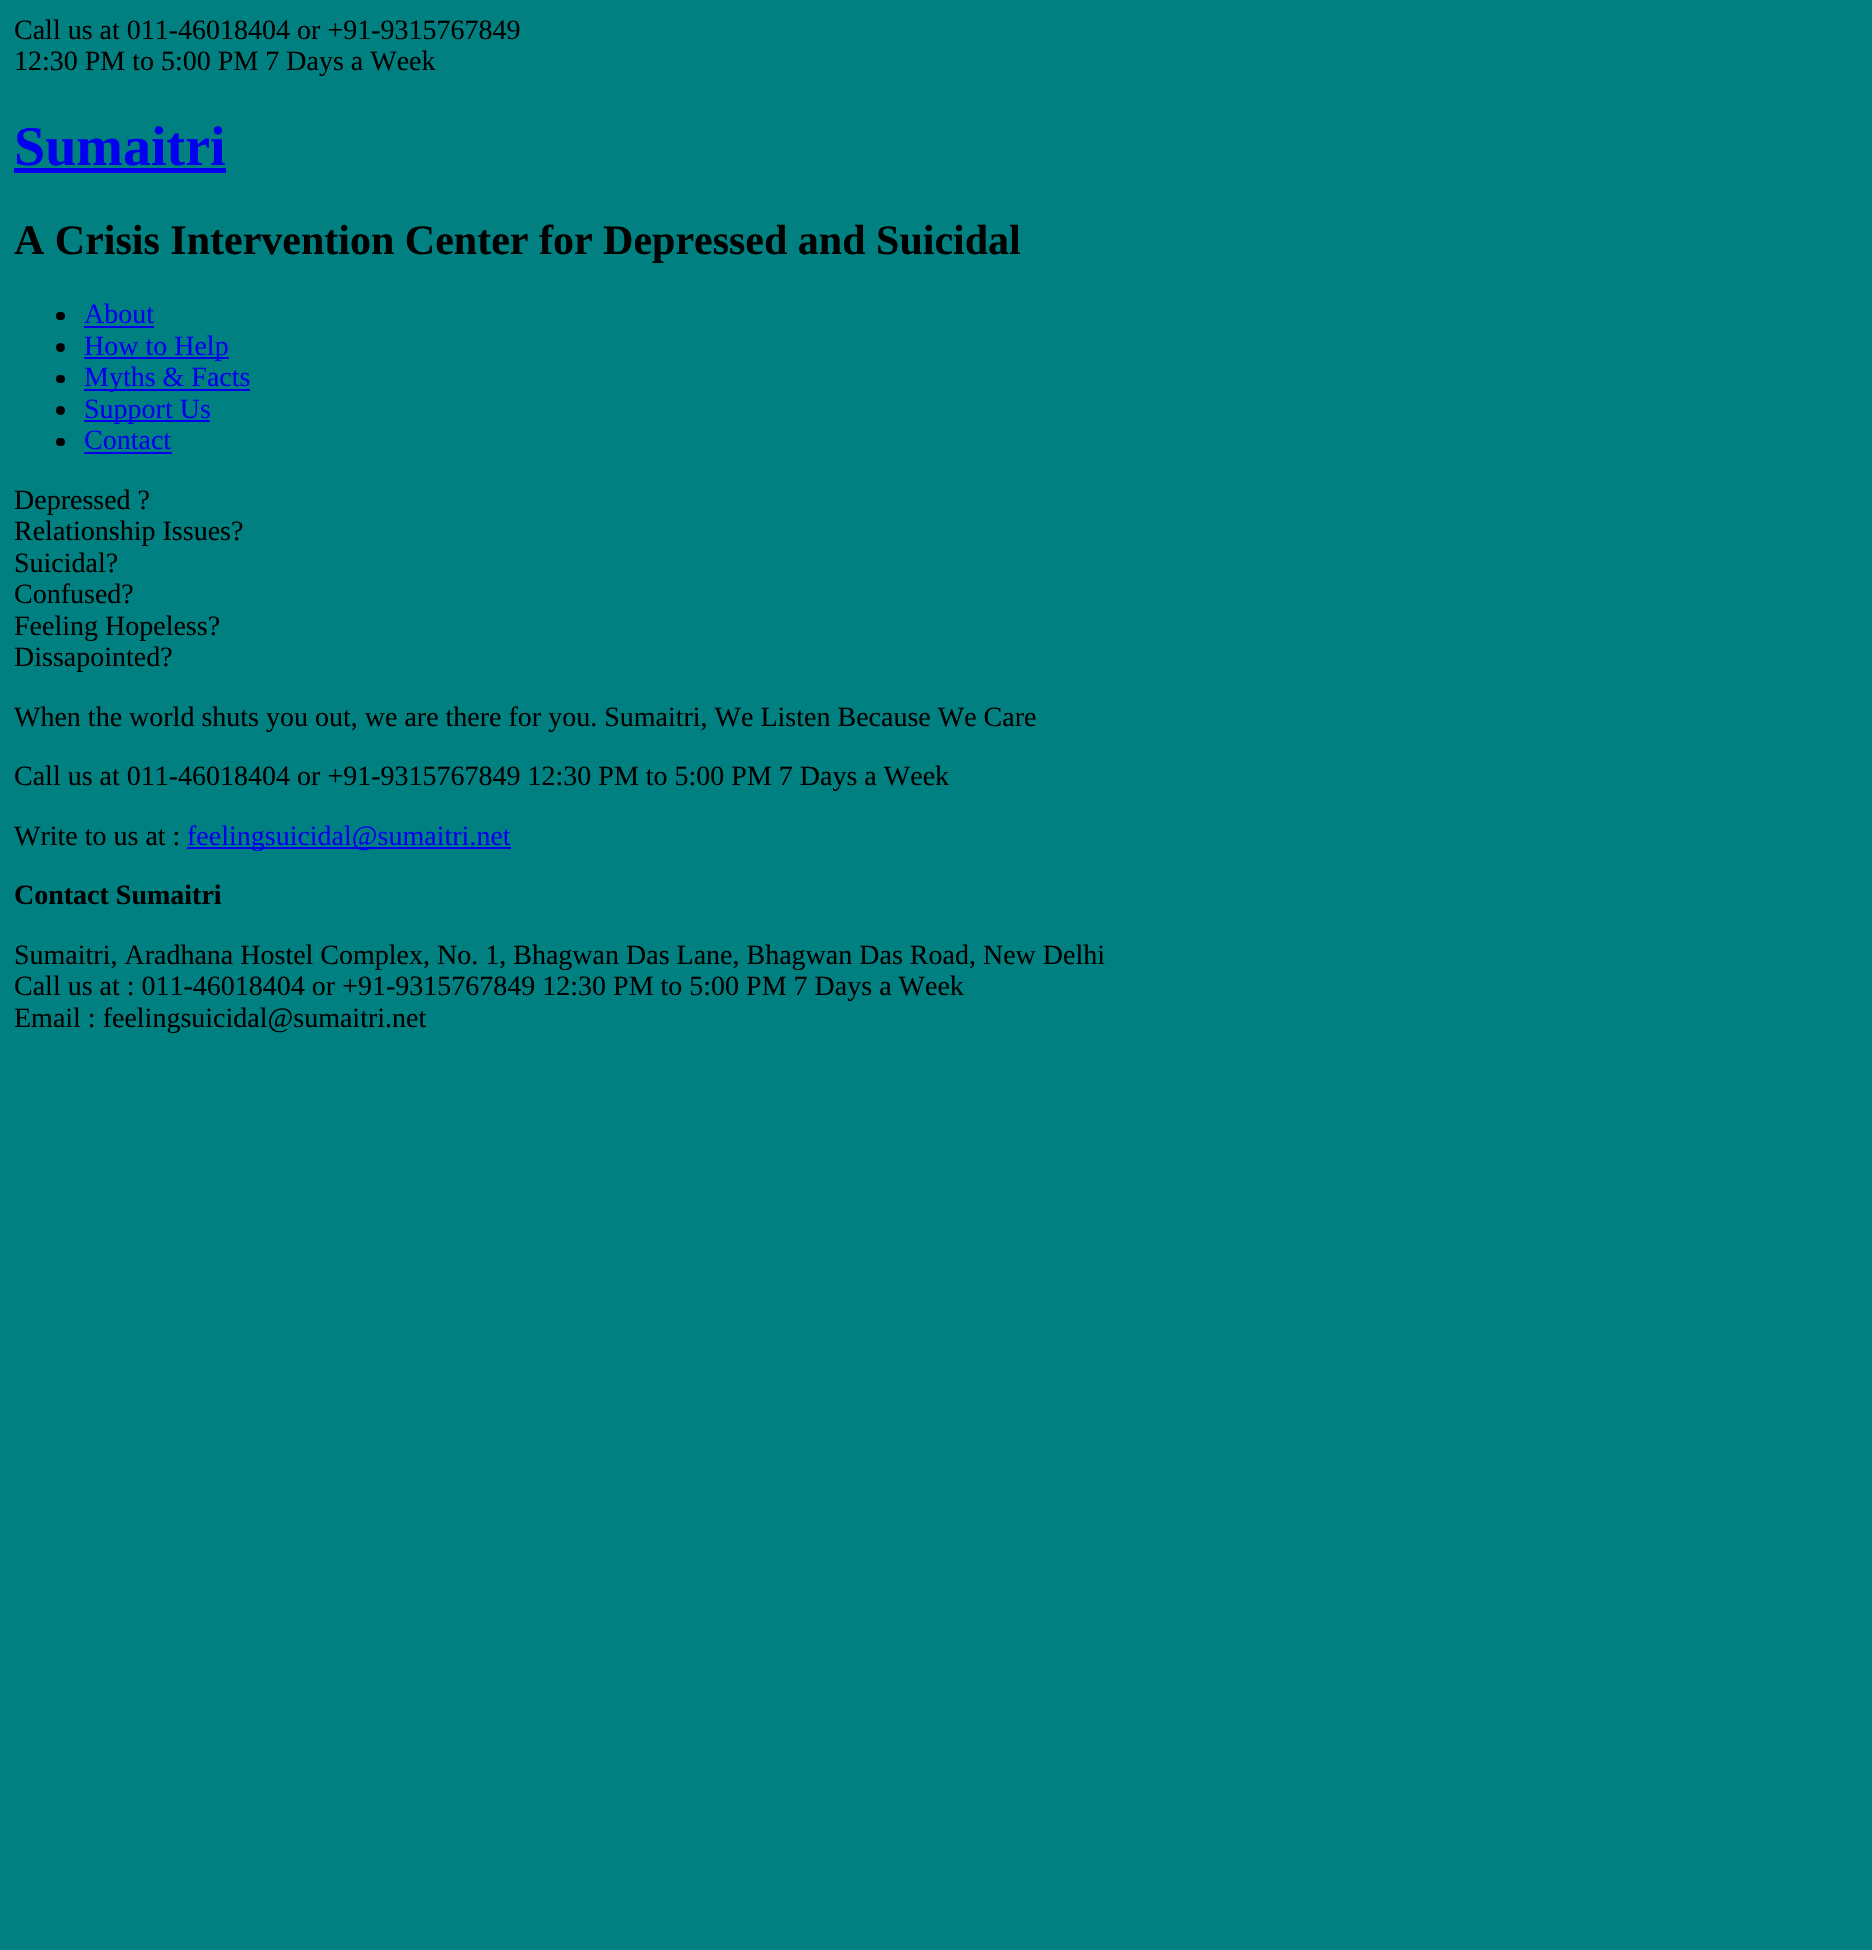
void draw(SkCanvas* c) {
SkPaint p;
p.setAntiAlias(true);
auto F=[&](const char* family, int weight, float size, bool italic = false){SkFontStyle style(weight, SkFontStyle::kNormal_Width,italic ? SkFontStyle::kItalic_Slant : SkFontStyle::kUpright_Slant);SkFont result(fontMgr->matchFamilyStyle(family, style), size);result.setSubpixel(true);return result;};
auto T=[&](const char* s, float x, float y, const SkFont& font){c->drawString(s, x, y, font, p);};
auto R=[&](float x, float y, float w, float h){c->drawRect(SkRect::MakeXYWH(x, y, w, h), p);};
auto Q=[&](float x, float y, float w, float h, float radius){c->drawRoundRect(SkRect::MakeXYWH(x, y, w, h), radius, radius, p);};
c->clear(0xff008080);
auto f1 = F("Liberation Serif",400,28);
p.setColor(0xff000000);
T("Call us at 011-46018404 or +91-9315767849",14,39,f1);
T("12:30 PM to 5:00 PM 7 Days a Week",14,70,f1);
auto f2 = F("Liberation Serif",700,56);
p.setColor(0xff0000ee);
T("Sumaitri",14,165,f2);
R(14,168,212,5);
auto f3 = F("Liberation Serif",700,42);
p.setColor(0xff000000);
T("A Crisis Intervention Center for Depressed and Suicidal",14,254,f3);
Q(56,312,9,8,4);
p.setColor(0xff0000ee);
T("About",84,323,f1);
R(84,326,70,2);
p.setColor(0xff000000);
c->drawCircle(60.5,347.5,4.5,p);
p.setColor(0xff0000ee);
R(84,357,145,2);
T("How to Help",84,355,f1);
p.setColor(0xff000000);
Q(56,375,9,8,4);
p.setColor(0xff0000ee);
R(84,389,166,2);
T("Myths & Facts",84,386,f1);
p.setColor(0xff000000);
c->drawCircle(60.5,410.5,4.5,p);
p.setColor(0xff0000ee);
R(84,420,126,2);
T("Support Us",84,418,f1);
p.setColor(0xff000000);
Q(56,438,9,8,4);
p.setColor(0xff0000ee);
T("Contact",84,449,f1);
R(84,452,88,2);
p.setColor(0xff000000);
T("Depressed ?",14,509,f1);
T("Relationship Issues?",14,540,f1);
T("Suicidal?",14,572,f1);
T("Confused?",14,603,f1);
T("Feeling Hopeless?",14,635,f1);
T("Dissapointed?",14,666,f1);
T("When the world shuts you out, we are there for you. Sumaitri, We Listen Because We Care",14,726,f1);
T("Call us at 011-46018404 or +91-9315767849 12:30 PM to 5:00 PM 7 Days a Week",14,785,f1);
T("Write to us at :",14,845,f1);
p.setColor(0xff0000ee);
R(187,847,324,2);
T("feelingsuicidal@sumaitri.net",187,845,f1);
auto f4 = F("Liberation Serif",700,28);
p.setColor(0xff000000);
T("Contact Sumaitri",14,904,f4);
T("Sumaitri, Aradhana Hostel Complex, No. 1, Bhagwan Das Lane, Bhagwan Das Road, New Delhi",14,964,f1);
T("Call us at : 011-46018404 or +91-9315767849 12:30 PM to 5:00 PM 7 Days a Week",14,995,f1);
T("Email : feelingsuicidal@sumaitri.net",14,1027,f1);
}
